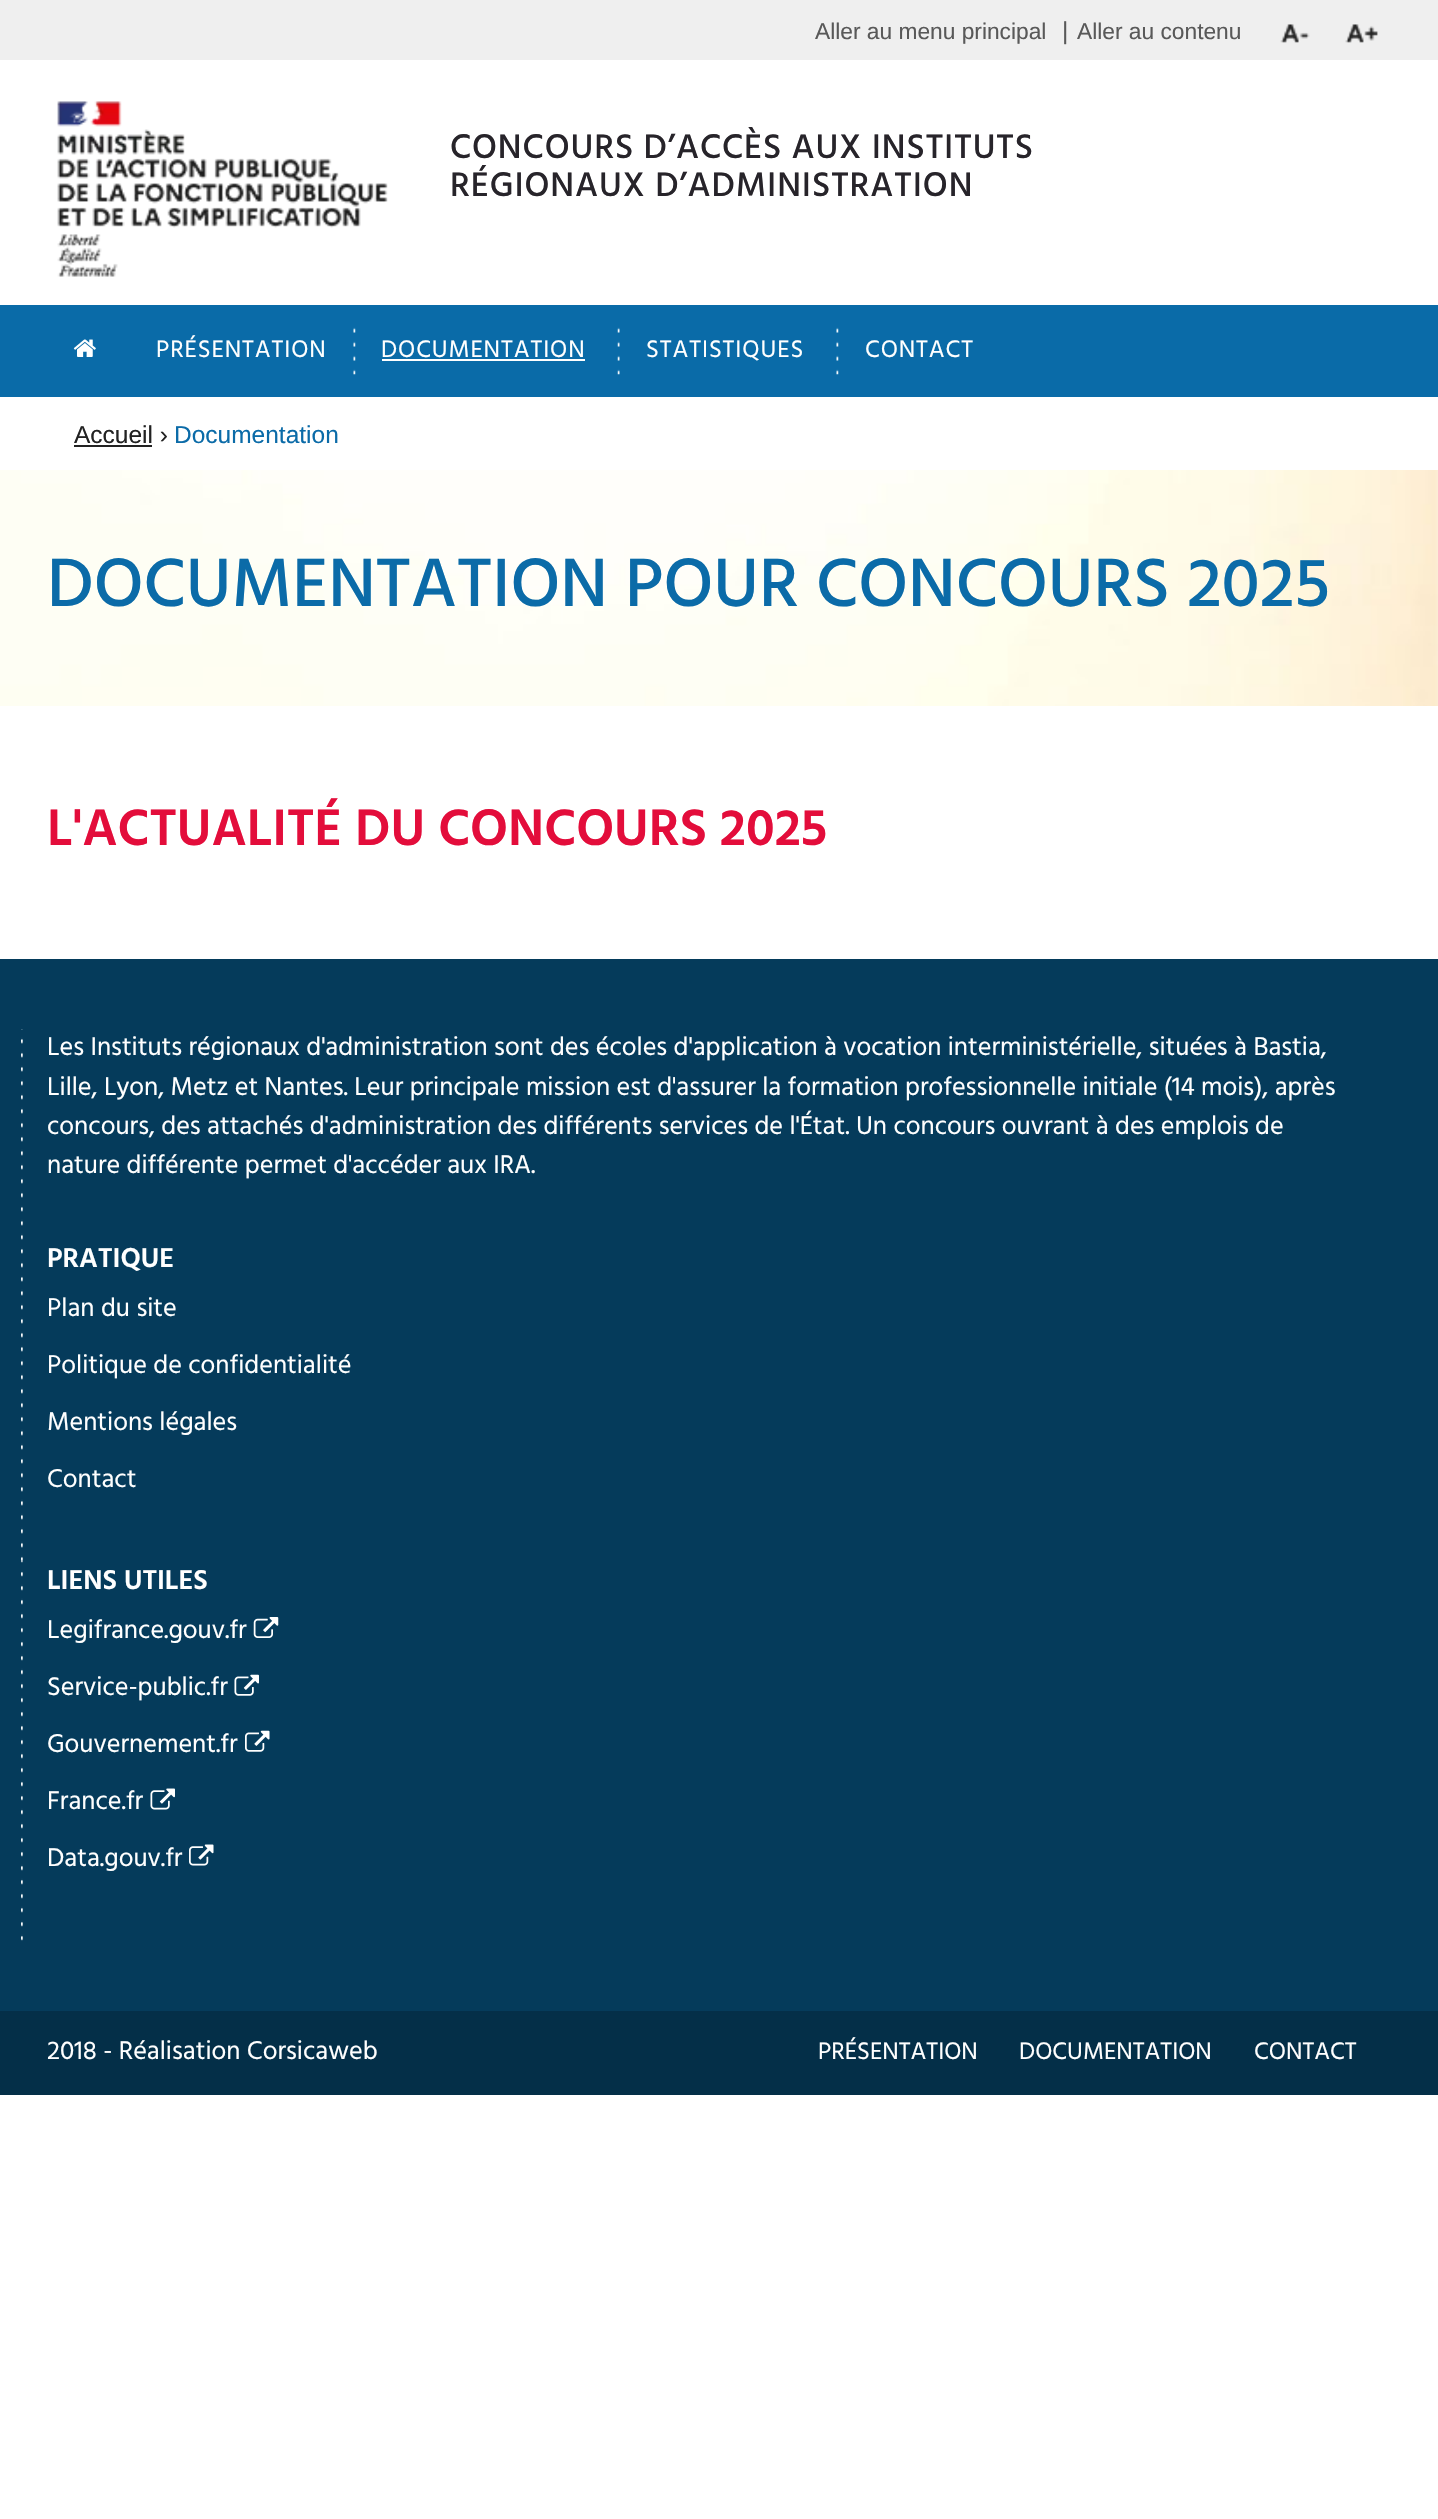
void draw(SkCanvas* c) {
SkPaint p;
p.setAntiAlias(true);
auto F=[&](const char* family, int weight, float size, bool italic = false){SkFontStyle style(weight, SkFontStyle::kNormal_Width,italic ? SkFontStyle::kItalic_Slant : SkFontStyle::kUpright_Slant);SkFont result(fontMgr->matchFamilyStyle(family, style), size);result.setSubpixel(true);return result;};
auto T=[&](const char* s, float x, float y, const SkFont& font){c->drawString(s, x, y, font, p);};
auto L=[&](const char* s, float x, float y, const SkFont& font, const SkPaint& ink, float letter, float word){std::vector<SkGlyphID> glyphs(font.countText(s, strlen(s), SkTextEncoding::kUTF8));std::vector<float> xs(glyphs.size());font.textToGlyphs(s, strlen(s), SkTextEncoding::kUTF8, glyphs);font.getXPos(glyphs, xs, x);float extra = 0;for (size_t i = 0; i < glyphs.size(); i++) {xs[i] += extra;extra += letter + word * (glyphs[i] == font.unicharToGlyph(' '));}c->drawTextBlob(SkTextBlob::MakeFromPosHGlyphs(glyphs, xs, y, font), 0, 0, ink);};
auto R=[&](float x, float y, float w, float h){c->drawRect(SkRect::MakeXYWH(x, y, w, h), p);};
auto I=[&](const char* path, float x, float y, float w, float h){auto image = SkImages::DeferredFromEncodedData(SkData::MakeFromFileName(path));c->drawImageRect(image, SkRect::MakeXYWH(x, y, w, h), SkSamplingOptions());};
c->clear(0xffffffff);
p.setColor(0xffefefef);
R(0,0,1438,60);
auto f1 = F("Liberation Sans",400,22.75);
p.setColor(0xff595959);
T("Aller au menu principal",815,39,f1);
auto f2 = F("Liberation Sans",400,24.5);
T("|",1062,39,f2);
T("Aller au contenu",1077,39,f1);
I("1.png",1280,24,30,19);
I("2.png",1345,24,33,19);
I("3.png",57,101,331,176);
auto f3 = F("Hind",500,35);
p.setColor(0xff27242a);
L("CONCOURS D’ACCÈS AUX INSTITUTS",450,158,f3,p,.9,0);
L("RÉGIONAUX D’ADMINISTRATION",450,196,f3,p,.9,0);
p.setColor(0xff0a6ba8);
R(0,305,1438,92);
I("4.png",73,339,23,18);
auto f4 = F("Hind",400,24.5);
p.setColor(0xffffffff);
L("PRÉSENTATION",156,357,f4,p,.9,0);
I("5.png",353,327,3,48);
L("DOCUMENTATION",381,357,f4,p,.9,0);
R(382,359,203,2);
I("6.png",617,327,3,48);
L("STATISTIQUES",646,357,f4,p,.9,0);
I("5.png",836,327,3,48);
L("CONTACT",865,357,f4,p,.9,0);
p.setColor(0xff222222);
T("Accueil ›",74,443,f2);
R(74,445,78,2);
p.setColor(0xff0b6ba8);
T("Documentation",174,443,f2);
I("7.png",0,470,1438,236);
auto f5 = F("Hind",500,70);
T("DOCUMENTATION POUR CONCOURS 2025",47,606,f5);
auto f6 = F("Hind",600,52.5);
p.setColor(0xffe30d3b);
T("L'ACTUALITÉ DU CONCOURS 2025",47,845,f6);
p.setColor(0xff053b5b);
R(0,959,1438,1052);
I("8.png",21,1029,2,210);
auto f7 = F("Hind",400,26.25);
p.setColor(0xffffffff);
T("Les Instituts régionaux d'administration sont des écoles d'application à vocation interministérielle, situées à Bastia,",47,1055,f7);
T("Lille, Lyon, Metz et Nantes. Leur principale mission est d'assurer la formation professionnelle initiale (14 mois), après",47,1095,f7);
T("concours, des attachés d'administration des différents services de l'État. Un concours ouvrant à des emplois de",47,1134,f7);
T("nature différente permet d'accéder aux IRA.",47,1173,f7);
I("9.png",21,1239,2,322);
auto f8 = F("Hind",600,28);
T("PRATIQUE",47,1267,f8);
T("Plan du site",47,1316,f7);
T("Politique de confidentialité",47,1373,f7);
T("Mentions légales",47,1430,f7);
T("Contact",47,1487,f7);
I("10.png",21,1561,2,380);
T("LIENS UTILES",47,1589,f8);
T("Legifrance.gouv.fr",47,1638,f7);
I("11.png",253,1617,26,21);
T("Service-public.fr",47,1695,f7);
I("12.png",234,1674,25,22);
T("Gouvernement.fr",47,1752,f7);
I("13.png",245,1730,25,22);
T("France.fr",47,1809,f7);
I("14.png",150,1788,25,22);
T("Data.gouv.fr",47,1866,f7);
I("15.png",189,1844,25,22);
p.setColor(0xff042f48);
R(0,2011,1438,84);
p.setColor(0xffffffff);
T("2018 - Réalisation Corsicaweb",47,2059,f7);
T("PRÉSENTATION",818,2059,f4);
T("DOCUMENTATION",1019,2059,f4);
T("CONTACT",1254,2059,f4);
}
